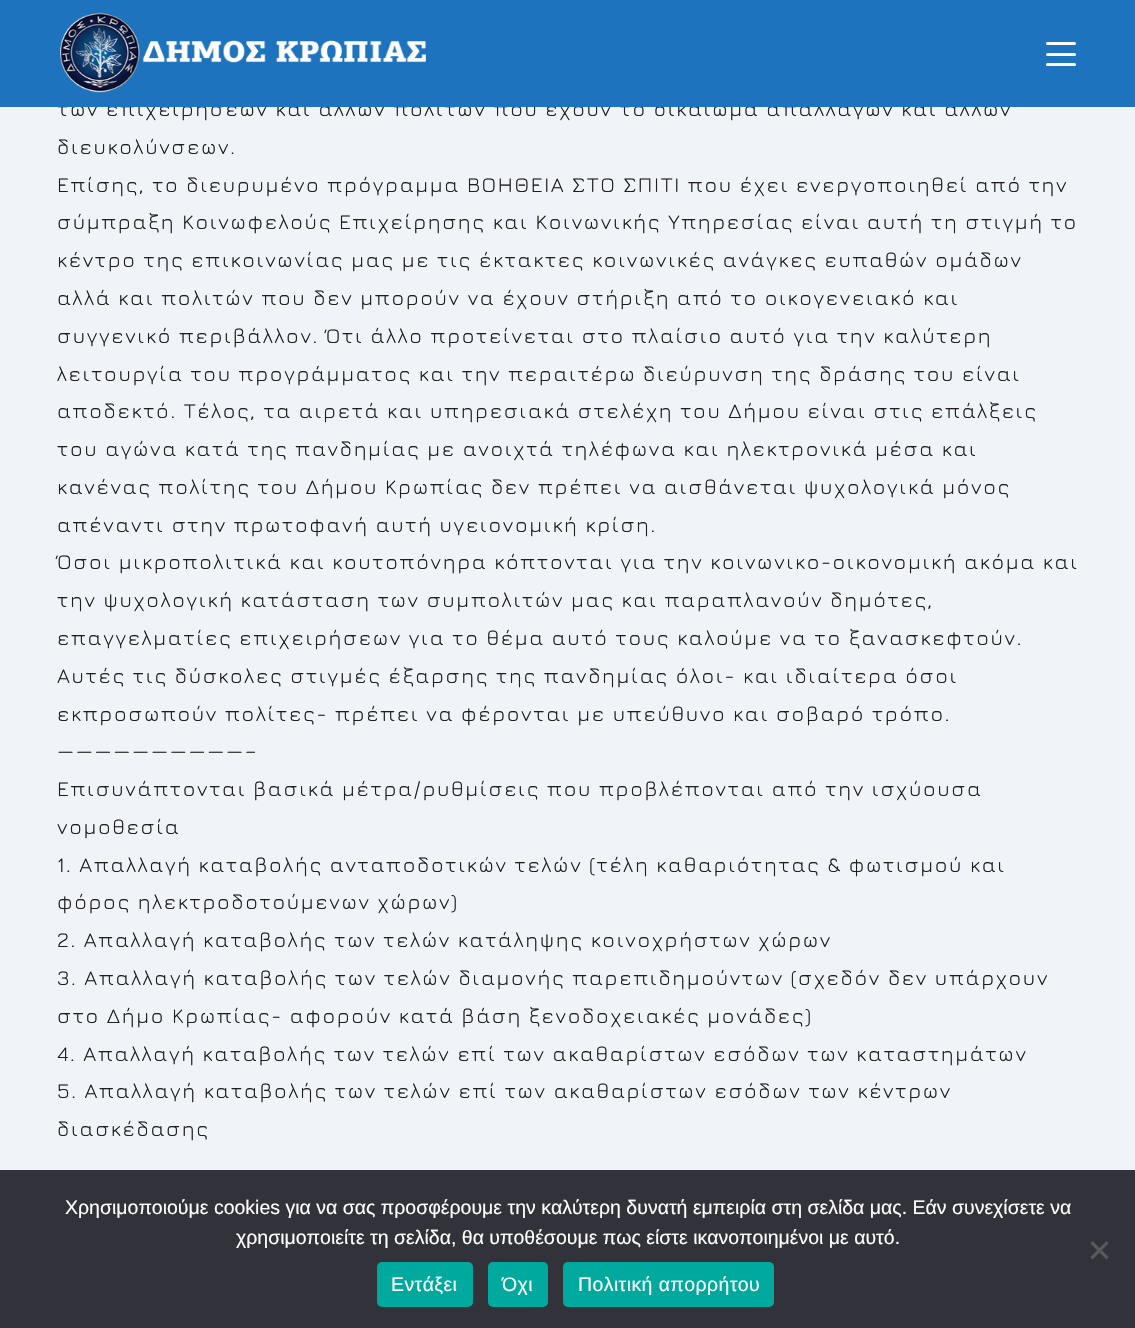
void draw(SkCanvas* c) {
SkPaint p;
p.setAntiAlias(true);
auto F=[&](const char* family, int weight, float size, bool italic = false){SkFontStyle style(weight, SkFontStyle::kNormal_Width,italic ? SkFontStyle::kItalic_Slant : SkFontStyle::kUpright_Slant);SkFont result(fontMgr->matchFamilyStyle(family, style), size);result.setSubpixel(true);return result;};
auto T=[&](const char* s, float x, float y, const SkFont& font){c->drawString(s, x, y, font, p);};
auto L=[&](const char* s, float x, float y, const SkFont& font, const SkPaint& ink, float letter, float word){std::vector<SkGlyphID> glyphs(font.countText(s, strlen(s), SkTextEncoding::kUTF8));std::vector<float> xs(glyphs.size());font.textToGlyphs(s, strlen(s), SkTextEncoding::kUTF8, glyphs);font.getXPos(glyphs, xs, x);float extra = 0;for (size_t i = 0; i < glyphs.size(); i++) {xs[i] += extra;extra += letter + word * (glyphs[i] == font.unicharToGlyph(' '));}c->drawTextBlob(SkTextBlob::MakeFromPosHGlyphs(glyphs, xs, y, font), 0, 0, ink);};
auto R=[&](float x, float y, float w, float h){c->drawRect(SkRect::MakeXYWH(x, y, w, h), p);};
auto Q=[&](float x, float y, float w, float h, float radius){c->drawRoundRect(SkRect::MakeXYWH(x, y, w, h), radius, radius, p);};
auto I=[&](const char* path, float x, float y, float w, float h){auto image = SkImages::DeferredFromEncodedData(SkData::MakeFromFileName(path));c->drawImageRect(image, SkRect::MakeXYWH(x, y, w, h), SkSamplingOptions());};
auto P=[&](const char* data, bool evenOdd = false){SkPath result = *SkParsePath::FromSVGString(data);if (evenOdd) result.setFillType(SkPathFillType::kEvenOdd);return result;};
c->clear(0xfff0f4f9);
auto f1 = F("Jura",400,21);
p.setColor(0xff1e1e1e);
L("των επιχειρήσεων και άλλων πολιτών που έχουν το δικαίωμα απαλλαγών και άλλων",57,116,f1,p,1.65,0);
p.setColor(0xff1e73be);
R(0,0,1135,107);
I("1.png",60,12,366,81);
p.setColor(0xffffffff);
Q(1046,53,30,3,1.5);
Q(1046,42,30,3,1.5);
Q(1046,63,30,3,1.5);
p.setColor(0xff1e1e1e);
L("διευκολύνσεων.",57,154,f1,p,1.65,0);
L("Επίσης, το διευρυμένο πρόγραμμα ΒΟΗΘΕΙΑ ΣΤΟ ΣΠΙΤΙ που έχει ενεργοποιηθεί από την",57,192,f1,p,1.65,0);
L("σύμπραξη Κοινωφελούς Επιχείρησης και Κοινωνικής Υπηρεσίας είναι αυτή τη στιγμή το",57,229,f1,p,1.65,0);
L("κέντρο της επικοινωνίας μας με τις έκτακτες κοινωνικές ανάγκες ευπαθών ομάδων",57,267,f1,p,1.65,0);
L("αλλά και πολιτών που δεν μπορούν να έχουν στήριξη από το οικογενειακό και",57,305,f1,p,1.65,0);
L("συγγενικό περιβάλλον. Ότι άλλο προτείνεται στο πλαίσιο αυτό για την καλύτερη",57,343,f1,p,1.65,0);
L("λειτουργία του προγράμματος και την περαιτέρω διεύρυνση της δράσης του είναι",57,381,f1,p,1.65,0);
L("αποδεκτό. Τέλος, τα αιρετά και υπηρεσιακά στελέχη του Δήμου είναι στις επάλξεις",57,418,f1,p,1.65,0);
L("του αγώνα κατά της πανδημίας με ανοιχτά τηλέφωνα και ηλεκτρονικά μέσα και",57,456,f1,p,1.65,0);
L("κανένας πολίτης του Δήμου Κρωπίας δεν πρέπει να αισθάνεται ψυχολογικά μόνος",57,494,f1,p,1.65,0);
L("απέναντι στην πρωτοφανή αυτή υγειονομική κρίση.",57,532,f1,p,1.65,0);
L("Όσοι μικροπολιτικά και κουτοπόνηρα κόπτονται για την κοινωνικο-οικονομική ακόμα και",57,569,f1,p,1.65,0);
L("την ψυχολογική κατάσταση των συμπολιτών μας και παραπλανούν δημότες,",57,607,f1,p,1.65,0);
L("επαγγελματίες επιχειρήσεων για το θέμα αυτό τους καλούμε να το ξανασκεφτούν.",57,645,f1,p,1.65,0);
L("Αυτές τις δύσκολες στιγμές έξαρσης της πανδημίας όλοι- και ιδιαίτερα όσοι",57,683,f1,p,1.65,0);
L("εκπροσωπούν πολίτες- πρέπει να φέρονται με υπεύθυνο και σοβαρό τρόπο.",57,721,f1,p,1.65,0);
L("——————————–",57,758,f1,p,1.65,0);
L("Eπισυνάπτονται βασικά μέτρα/ρυθμίσεις που προβλέπονται από την ισχύουσα",57,796,f1,p,1.65,0);
L("νομοθεσία",57,834,f1,p,1.65,0);
L("1. Απαλλαγή καταβολής ανταποδοτικών τελών (τέλη καθαριότητας & φωτισμού και",57,872,f1,p,1.65,0);
L("φόρος ηλεκτροδοτούμενων χώρων)",57,909,f1,p,1.65,0);
L("2. Απαλλαγή καταβολής των τελών κατάληψης κοινοχρήστων χώρων",57,947,f1,p,1.65,0);
L("3. Απαλλαγή καταβολής των τελών διαμονής παρεπιδημούντων (σχεδόν δεν υπάρχουν",57,985,f1,p,1.65,0);
L("στο Δήμο Κρωπίας- αφορούν κατά βάση ξενοδοχειακές μονάδες)",57,1023,f1,p,1.65,0);
L("4. Απαλλαγή καταβολής των τελών επί των ακαθαρίστων εσόδων των καταστημάτων",57,1061,f1,p,1.65,0);
L("5. Απαλλαγή καταβολής των τελών επί των ακαθαρίστων εσόδων των κέντρων",57,1098,f1,p,1.65,0);
L("διασκέδασης",57,1136,f1,p,1.65,0);
p.setColor(0xff32323a);
R(0,1170,1135,158);
auto f2 = F("Liberation Sans",400,19.5);
p.setColor(0xffffffff);
T("Χρησιμοποιούμε cookies για να σας προσφέρουμε την καλύτερη δυνατή εμπειρία στη σελίδα μας. Εάν συνεχίσετε να",65,1214,f2);
T("χρησιμοποιείτε τη σελίδα, θα υποθέσουμε πως είστε ικανοποιημένοι με αυτό.",236,1244,f2);
p.setColor(0xff59595d);
c->drawPath(P("M1106.5 1241l2 2.5l-16 16l-2-2.5z"),p);
c->drawPath(P("M1090.5 1243.5l2-2.5l16 16l-2 2.5z"),p);
p.setColor(0xff00a99d);
Q(377,1262,96,45,5);
p.setColor(0xffffffff);
L("Εντάξει",391,1291,f2,p,.4,0);
p.setColor(0xff00a99d);
Q(488,1262,60,45,5);
p.setColor(0xffffffff);
L("Όχι",502,1291,f2,p,.4,0);
p.setColor(0xff00a99d);
Q(563,1262,211,45,5);
p.setColor(0xffffffff);
L("Πολιτική απορρήτου",578,1291,f2,p,.4,0);
}
